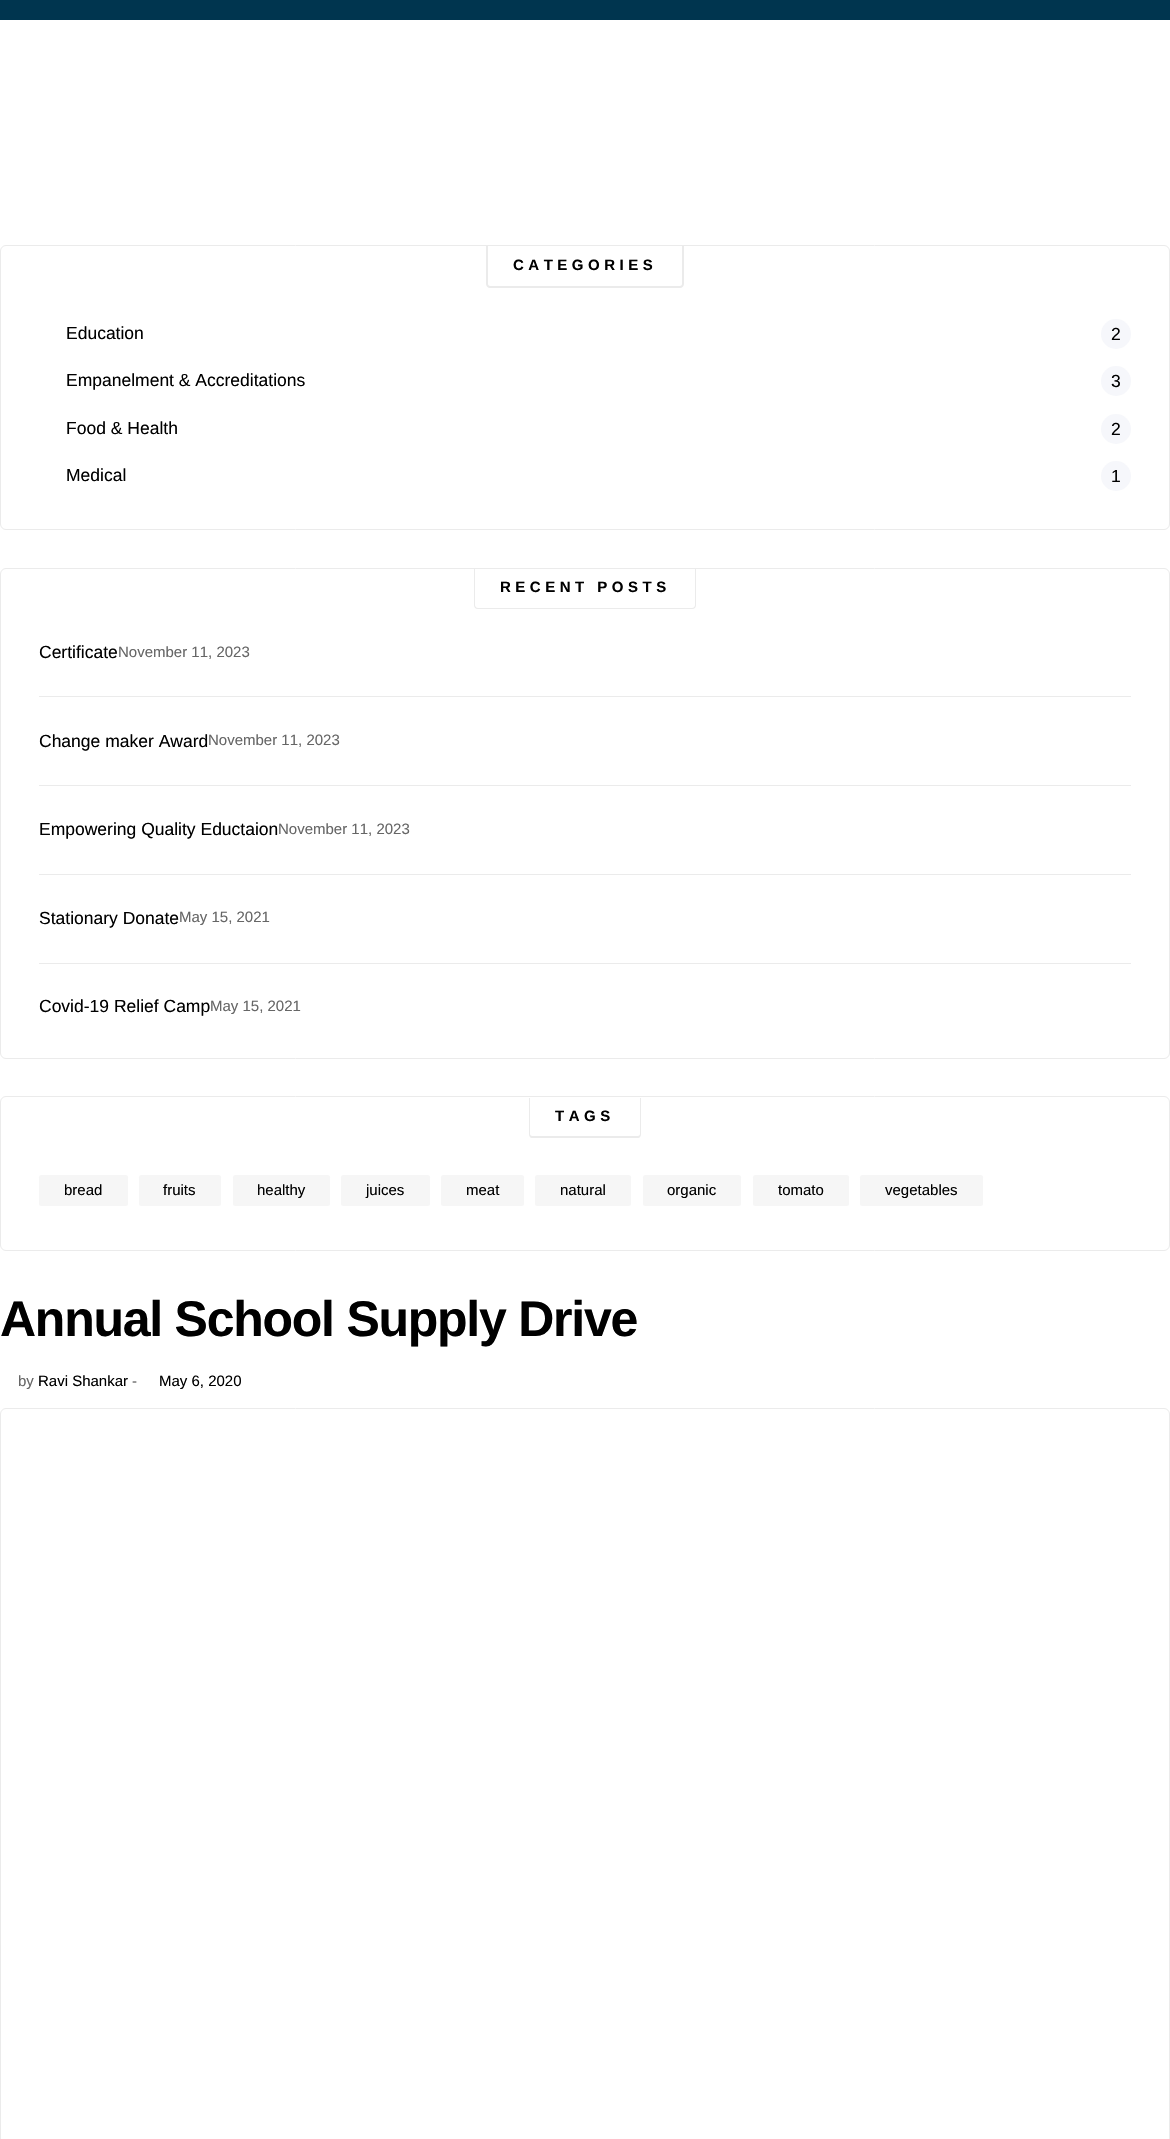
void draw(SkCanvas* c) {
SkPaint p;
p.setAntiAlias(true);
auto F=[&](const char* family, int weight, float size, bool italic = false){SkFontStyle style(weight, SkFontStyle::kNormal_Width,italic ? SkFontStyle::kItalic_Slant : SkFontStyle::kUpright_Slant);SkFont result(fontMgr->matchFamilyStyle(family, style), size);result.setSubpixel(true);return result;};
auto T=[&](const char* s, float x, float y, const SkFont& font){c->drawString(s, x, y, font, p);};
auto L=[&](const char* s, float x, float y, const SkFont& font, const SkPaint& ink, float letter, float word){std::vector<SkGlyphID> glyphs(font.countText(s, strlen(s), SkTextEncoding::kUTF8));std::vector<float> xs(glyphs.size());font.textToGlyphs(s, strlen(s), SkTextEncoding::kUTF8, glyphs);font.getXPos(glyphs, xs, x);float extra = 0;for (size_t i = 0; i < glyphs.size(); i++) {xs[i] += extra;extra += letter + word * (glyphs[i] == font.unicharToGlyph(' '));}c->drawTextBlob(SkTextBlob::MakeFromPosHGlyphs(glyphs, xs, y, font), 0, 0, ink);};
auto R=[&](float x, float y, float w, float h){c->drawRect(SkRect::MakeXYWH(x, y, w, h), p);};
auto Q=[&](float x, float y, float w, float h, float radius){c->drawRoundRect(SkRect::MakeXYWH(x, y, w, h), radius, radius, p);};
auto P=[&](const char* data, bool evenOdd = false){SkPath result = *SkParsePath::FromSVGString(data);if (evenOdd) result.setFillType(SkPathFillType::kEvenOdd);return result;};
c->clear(0xffffffff);
p.setColor(0xff00354f);
R(0,0,1170,20);
p.setStroke(true);
p.setStrokeWidth(1);
p.setColor(0xffebebeb);
c->drawRoundRect(SkRect::MakeXYWH(.5,245.5,1169,284),5.5,5.5,p);
p.setStroke(false);
c->drawPath(P("M486 246h198v38c0 2-2 4-4 4h-190c-2 0-4-2-4-4zm2 0h194v38c0 1-1 2-2 2h-190c-1 0-2-1-2-2z",true),p);
auto f1 = F("Liberation Sans",700,15);
p.setColor(0xff000000);
L("CATEGORIES",513,270,f1,p,4.5,0);
auto f2 = F("Liberation Sans",400,17.5);
T("Education",66,339,f2);
p.setColor(0xfff6f7fb);
c->drawCircle(1116,334,15,p);
p.setColor(0xff000000);
T("2",1111,340,f2);
T("Empanelment & Accreditations",66,386,f2);
p.setColor(0xfff6f7fb);
c->drawCircle(1116,381,15,p);
p.setColor(0xff000000);
T("3",1111,387,f2);
T("Food & Health",66,434,f2);
p.setColor(0xfff6f7fb);
c->drawCircle(1116,429,15,p);
p.setColor(0xff000000);
T("2",1111,435,f2);
T("Medical",66,481,f2);
p.setColor(0xfff6f7fb);
c->drawCircle(1116,476,15,p);
p.setColor(0xff000000);
T("1",1111,482,f2);
p.setStroke(true);
p.setColor(0xffebebeb);
c->drawRoundRect(SkRect::MakeXYWH(.5,568.5,1169,490),5.5,5.5,p);
p.setStroke(false);
c->drawPath(P("M474 569h222v36c0 2-1 4-4 4h-214c-3 0-4-2-4-4zm1 0h220v36c0 1-1 3-3 3h-214c-2 0-3-2-3-3z",true),p);
p.setColor(0xff000000);
L("RECENT POSTS",500,592,f1,p,4.5,0);
p.setColor(0xffebebeb);
R(39,696,1092,1);
p.setColor(0xff000000);
T("Certificate",39,658,f2);
auto f3 = F("Liberation Sans",400,15);
p.setColor(0xff666666);
T("November 11, 2023",118,657,f3);
p.setColor(0xffebebeb);
R(39,785,1092,1);
p.setColor(0xff000000);
T("Change maker Award",39,747,f2);
p.setColor(0xff666666);
T("November 11, 2023",208,745,f3);
p.setColor(0xffebebeb);
R(39,874,1092,1);
p.setColor(0xff000000);
T("Empowering Quality Eductaion",39,835,f2);
p.setColor(0xff666666);
T("November 11, 2023",278,834,f3);
p.setColor(0xffebebeb);
R(39,963,1092,1);
p.setColor(0xff000000);
T("Stationary Donate",39,924,f2);
p.setColor(0xff666666);
T("May 15, 2021",179,922,f3);
p.setColor(0xff000000);
T("Covid-19 Relief Camp",39,1012,f2);
p.setColor(0xff666666);
T("May 15, 2021",210,1011,f3);
p.setStroke(true);
p.setColor(0xffebebeb);
c->drawRoundRect(SkRect::MakeXYWH(.5,1096.5,1169,154),5.5,5.5,p);
p.setStroke(false);
c->drawPath(P("M529 1098h112v36c0 2-1 4-3 4h-106c-2 0-3-2-3-4zm1 0h110v36c0 1-1 2-2 2h-106c-1 0-2-1-2-2z",true),p);
p.setColor(0xff000000);
L("TAGS",555,1121,f1,p,4.5,0);
p.setColor(0xfff6f6f6);
Q(39,1175,89,31,2.5);
p.setColor(0xff000000);
T("bread",64,1195,f3);
p.setColor(0xfff6f6f6);
Q(139,1175,82,31,2.5);
p.setColor(0xff000000);
T("fruits",163,1195,f3);
p.setColor(0xfff6f6f6);
Q(233,1175,97,31,2.5);
p.setColor(0xff000000);
T("healthy",257,1195,f3);
p.setColor(0xfff6f6f6);
Q(341,1175,89,31,2.5);
p.setColor(0xff000000);
T("juices",366,1195,f3);
p.setColor(0xfff6f6f6);
Q(441,1175,83,31,2.5);
p.setColor(0xff000000);
T("meat",466,1195,f3);
p.setColor(0xfff6f6f6);
Q(535,1175,96,31,2.5);
p.setColor(0xff000000);
T("natural",560,1195,f3);
p.setColor(0xfff6f6f6);
Q(643,1175,98,31,2.5);
p.setColor(0xff000000);
T("organic",667,1195,f3);
p.setColor(0xfff6f6f6);
Q(753,1175,96,31,2.5);
p.setColor(0xff000000);
T("tomato",778,1195,f3);
p.setColor(0xfff6f6f6);
Q(860,1175,123,31,2.5);
p.setColor(0xff000000);
T("vegetables",885,1195,f3);
auto f4 = F("Liberation Sans",700,50);
L("Annual School Supply Drive",0,1336,f4,p,-1.25,0);
p.setColor(0xff666666);
T("by",18,1386,f3);
p.setColor(0xff000000);
T("Ravi Shankar",38,1386,f3);
p.setColor(0xff666666);
T("-",132,1386,f3);
p.setColor(0xff000000);
T("May 6, 2020",159,1386,f3);
p.setStroke(true);
p.setColor(0xffebebeb);
c->drawRoundRect(SkRect::MakeXYWH(.5,1408.5,1169,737),5.5,5.5,p);
}
